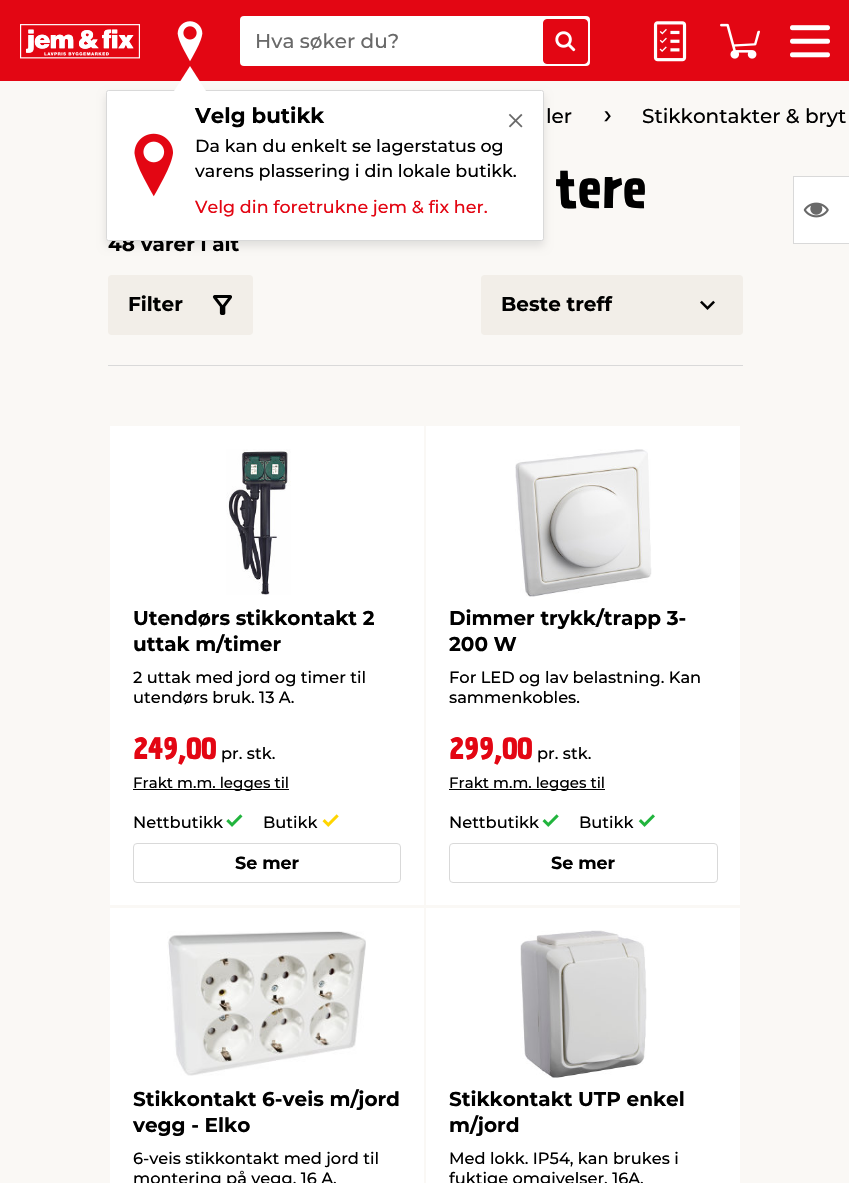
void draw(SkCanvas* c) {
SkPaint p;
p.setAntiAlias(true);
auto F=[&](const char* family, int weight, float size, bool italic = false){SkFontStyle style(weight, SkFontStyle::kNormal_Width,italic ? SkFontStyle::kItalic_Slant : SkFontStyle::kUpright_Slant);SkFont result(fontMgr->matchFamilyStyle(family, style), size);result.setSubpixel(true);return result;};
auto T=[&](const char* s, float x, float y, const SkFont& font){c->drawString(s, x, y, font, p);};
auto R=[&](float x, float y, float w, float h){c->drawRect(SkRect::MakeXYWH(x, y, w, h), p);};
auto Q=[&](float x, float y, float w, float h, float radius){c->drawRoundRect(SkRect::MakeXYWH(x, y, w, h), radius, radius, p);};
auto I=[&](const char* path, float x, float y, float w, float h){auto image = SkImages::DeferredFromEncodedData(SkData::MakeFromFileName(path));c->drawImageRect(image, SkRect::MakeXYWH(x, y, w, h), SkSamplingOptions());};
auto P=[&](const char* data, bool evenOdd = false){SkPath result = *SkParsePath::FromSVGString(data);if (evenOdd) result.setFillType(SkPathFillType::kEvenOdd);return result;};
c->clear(0xfffaf8f5);
p.setColor(0xffe30613);
R(0,0,849,81);
I("1.png",20,24,120,35);
p.setColor(0xffffffff);
Q(240,16,350,50,4);
auto f1 = F("Montserrat",500,20);
p.setColor(0xff696969);
T("Hva søker du?",255,48,f1);
p.setColor(0xffe30613);
c->drawRoundRect(SkRect::MakeXYWH(543.5,19.5,44,44),3.5,3.5,p);
p.setStroke(true);
p.setStrokeWidth(1);
c->drawRoundRect(SkRect::MakeXYWH(543.5,19.5,44,44),3.5,3.5,p);
I("2.png",555,31,21,21);
I("3.png",653,21,34,41);
I("4.png",720,23,40,36);
I("5.png",790,25,40,33);
I("6.png",177,21,26,41);
p.setStroke(false);
p.setColor(0x1a000000);
p.setMaskFilter(SkMaskFilter::MakeBlur(kNormal_SkBlurStyle, 4));
c->drawRoundRect(SkRect::MakeXYWH(106,95,438,151),2.5,2.5,p);
p.setMaskFilter(nullptr);
auto f2 = F("Montserrat",700,20);
p.setColor(0xff000000);
T("48 varer i alt",108,251,f2);
p.setColor(0xffffffff);
c->drawRoundRect(SkRect::MakeXYWH(106.5,90.5,437,150),2,2,p);
p.setStroke(true);
p.setColor(0xffd9d9d9);
c->drawRoundRect(SkRect::MakeXYWH(106.5,90.5,437,150),2,2,p);
p.setStroke(false);
p.setColor(0xffffffff);
c->drawPath(P("M206 91h-32l16-25z"),p);
auto f3 = F("Montserrat",700,21.25);
p.setColor(0xff000000);
T("Velg butikk",195,123,f3);
auto f4 = F("Montserrat",500,17.5);
T("Da kan du enkelt se lagerstatus og",195,152,f4);
T("varens plassering i din lokale butikk.",195,177,f4);
p.setColor(0xffe30613);
T("Velg din foretrukne jem & fix her.",195,213,f4);
I("7.png",508,113,15,15);
I("8.png",134,133,39,64);
p.setColor(0xff000000);
T("ler",546,123,f1);
I("9.png",604,111,7,11);
T("Stikkontakter & bryt",642,123,f1);
auto f5 = F("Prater",400,49);
T("tere",556,208,f5);
p.setColor(0xffd9d9d9);
R(108,365,635,1);
p.setColor(0xfff2eee8);
Q(108,275,145,60,4);
p.setColor(0xff000000);
T("Filter",128,311,f2);
I("10.png",212,295,20,20);
p.setColor(0xfff2eee8);
Q(481,275,262,60,4);
I("11.png",700,300,15,10);
p.setColor(0xff000000);
T("Beste treff",501,311,f2);
p.setColor(0xffffffff);
R(110,426,314,479);
I("12.png",226,449,65,146);
p.setColor(0xff000000);
T("Utendørs stikkontakt 2",133,625,f2);
T("uttak m/timer",133,651,f2);
auto f6 = F("Montserrat",500,16.25);
T("2 uttak med jord og timer til",133,683,f6);
T("utendørs bruk. 13 A.",133,703,f6);
auto f7 = F("Prater",400,27.5);
p.setColor(0xffe30613);
T("249,00",133,759,f7);
p.setColor(0xff000000);
T("pr. stk.",221,759,f6);
R(133,789,156,1);
auto f8 = F("Montserrat",500,15);
T("Frakt m.m. legges til",133,788,f8);
T("Nettbutikk",133,828,f6);
I("13.png",226,814,17,13);
T("Butikk",263,828,f6);
I("14.png",322,814,17,13);
p.setStroke(true);
p.setColor(0xffd9d9d9);
c->drawRoundRect(SkRect::MakeXYWH(133.5,843.5,267,39),3.5,3.5,p);
auto f9 = F("Montserrat",700,17.5);
p.setStroke(false);
p.setColor(0xff000000);
T("Se mer",235,869,f9);
p.setColor(0xffffffff);
R(426,426,314,479);
I("15.png",515,449,137,148);
p.setColor(0xff000000);
T("Dimmer trykk/trapp 3-",449,625,f2);
T("200 W",449,651,f2);
T("For LED og lav belastning. Kan",449,683,f6);
T("sammenkobles.",449,703,f6);
p.setColor(0xffe30613);
T("299,00",449,759,f7);
p.setColor(0xff000000);
T("pr. stk.",537,759,f6);
R(449,789,156,1);
T("Frakt m.m. legges til",449,788,f8);
T("Nettbutikk",449,828,f6);
I("16.png",542,814,17,13);
T("Butikk",579,828,f6);
I("17.png",638,814,17,13);
p.setStroke(true);
p.setColor(0xffd9d9d9);
c->drawRoundRect(SkRect::MakeXYWH(449.5,843.5,268,39),3.5,3.5,p);
p.setStroke(false);
p.setColor(0xff000000);
T("Se mer",551,869,f9);
p.setColor(0xffffffff);
R(110,908,314,275);
I("18.png",167,931,199,145);
p.setColor(0xff000000);
T("Stikkontakt 6-veis m/jord",133,1106,f2);
T("vegg - Elko",133,1132,f2);
T("6-veis stikkontakt med jord til",133,1164,f6);
T("montering på vegg. 16 A.",133,1184,f6);
p.setColor(0xffffffff);
R(426,908,314,275);
I("19.png",520,930,127,148);
p.setColor(0xff000000);
T("Stikkontakt UTP enkel",449,1106,f2);
T("m/jord",449,1132,f2);
T("Med lokk. IP54, kan brukes i",449,1164,f6);
T("fuktige omgivelser. 16A.",449,1184,f6);
p.setColor(0xffffffff);
c->drawRect(SkRect::MakeXYWH(793.5,176.5,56,67),p);
p.setStroke(true);
p.setColor(0xffd9d9d9);
c->drawRect(SkRect::MakeXYWH(793.5,176.5,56,67),p);
I("20.png",803,202,26,16);
}
